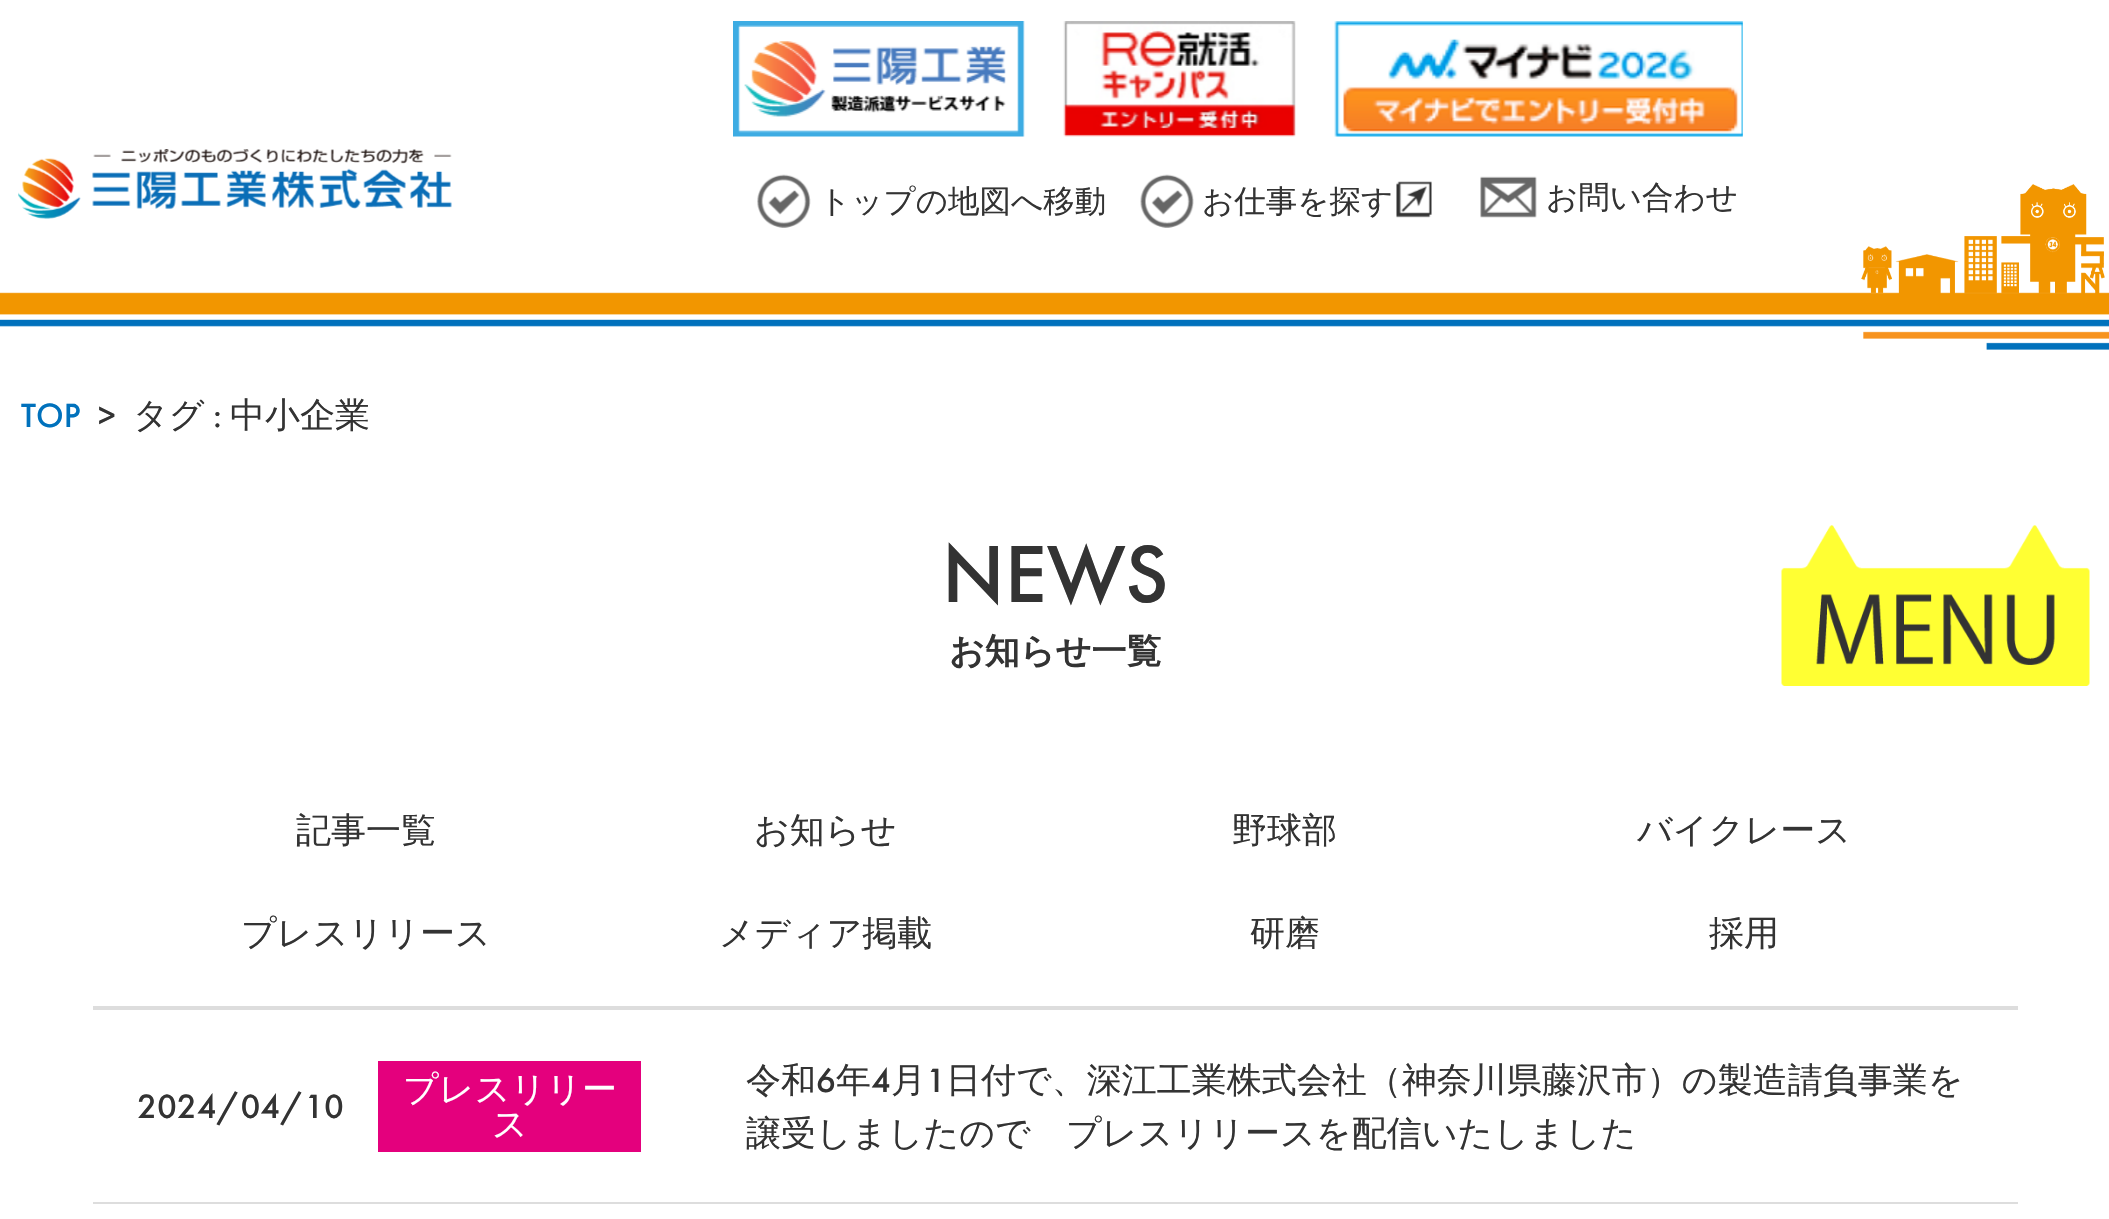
void draw(SkCanvas* c) {
SkPaint p;
p.setAntiAlias(true);
auto F=[&](const char* family, int weight, float size, bool italic = false){SkFontStyle style(weight, SkFontStyle::kNormal_Width,italic ? SkFontStyle::kItalic_Slant : SkFontStyle::kUpright_Slant);SkFont result(fontMgr->matchFamilyStyle(family, style), size);result.setSubpixel(true);return result;};
auto T=[&](const char* s, float x, float y, const SkFont& font){c->drawString(s, x, y, font, p);};
auto R=[&](float x, float y, float w, float h){c->drawRect(SkRect::MakeXYWH(x, y, w, h), p);};
auto I=[&](const char* path, float x, float y, float w, float h){auto image = SkImages::DeferredFromEncodedData(SkData::MakeFromFileName(path));c->drawImageRect(image, SkRect::MakeXYWH(x, y, w, h), SkSamplingOptions());};
c->clear(0xffffffff);
I("1.png",0,184,2109,166);
I("2.png",18,149,434,70);
I("3.png",733,21,292,116);
I("4.png",1063,21,233,116);
I("5.png",1334,21,409,116);
I("6.png",757,174,54,54);
auto f1 = F("WenQuanYi Zen Hei",500,31.5);
p.setColor(0xff333333);
T("トップの地図へ移動",819,212,f1);
I("7.png",1140,174,54,54);
T("お仕事を探す",1202,212,f1);
I("8.png",1396,181,36,37);
I("9.png",1480,176,57,42);
T("お問い合わせ",1546,208,f1);
I("10.png",1781,525,309,161);
auto f2 = F("Futura PT",500,35);
p.setColor(0xff0071bc);
T("TOP",21,427,f2);
p.setColor(0xff333333);
T(">",98,427,f2);
auto f3 = F("WenQuanYi Zen Hei",500,35);
T("タグ",133,427,f3);
T(":",213,427,f2);
T("中小企業",230,427,f3);
auto f4 = F("Futura PT",500,84);
T("NEWS",942,602,f4);
auto f5 = F("WenQuanYi Zen Hei",700,35);
T("お知らせ一覧",949,663,f5);
p.setColor(0xffdddddd);
R(93,1006,1925,4);
p.setColor(0xff333333);
T("記事一覧",296,842,f3);
T("お知らせ",754,842,f3);
T("野球部",1232,842,f3);
T("バイクレース",1637,842,f3);
T("プレスリリース",241,945,f3);
T("メディア掲載",719,945,f3);
T("研磨",1250,945,f3);
T("採用",1709,945,f3);
p.setColor(0xffdddddd);
R(93,1202,1925,2);
p.setColor(0xff333333);
T("2024/04/10",137,1118,f2);
p.setColor(0xffe4007d);
R(378,1061,263,91);
p.setColor(0xffffffff);
T("プレスリリー",403,1101,f3);
T("ス",492,1136,f3);
p.setColor(0xff333333);
T("令和",746,1092,f3);
T("6",816,1092,f2);
T("年",836,1092,f3);
T("4",871,1092,f2);
T("月",891,1092,f3);
T("1",926,1092,f2);
T("日付で、深江工業株式会社（神奈川県藤沢市）の製造請負事業を",946,1092,f3);
T("譲受しましたので　プレスリリースを配信いたしました",746,1145,f3);
}
